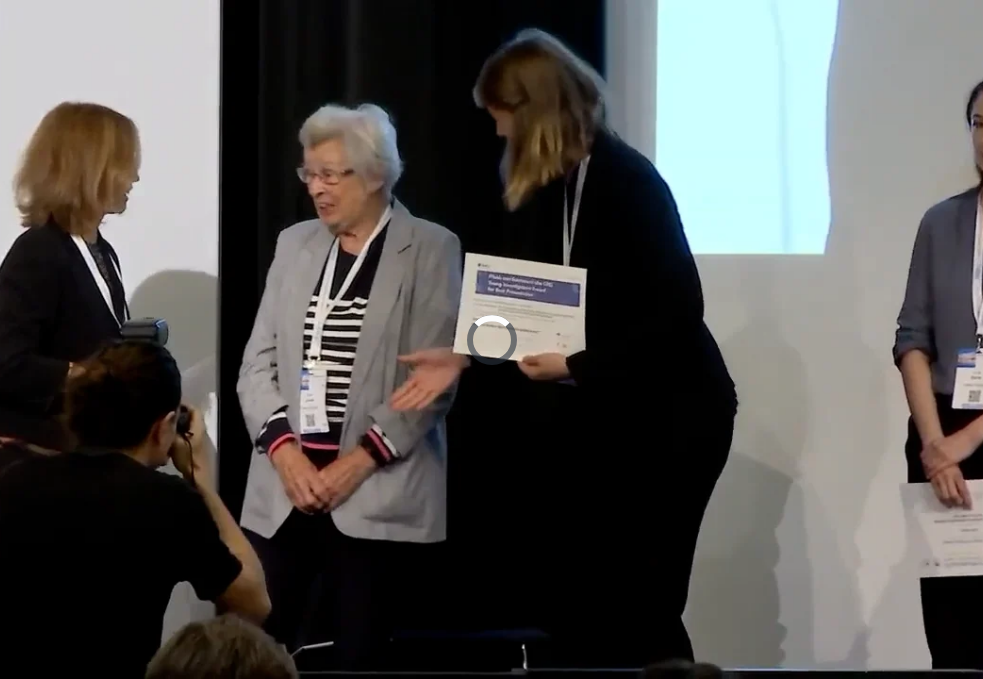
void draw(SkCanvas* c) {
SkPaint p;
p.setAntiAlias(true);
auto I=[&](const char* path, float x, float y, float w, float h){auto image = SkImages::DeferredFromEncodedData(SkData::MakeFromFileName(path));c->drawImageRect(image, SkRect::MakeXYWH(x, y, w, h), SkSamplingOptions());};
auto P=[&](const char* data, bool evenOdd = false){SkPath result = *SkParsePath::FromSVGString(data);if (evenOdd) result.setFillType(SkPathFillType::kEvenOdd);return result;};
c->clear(0xffffffff);
I("1.png",0,0,983,679);
p.setStroke(true);
p.setStrokeWidth(6);
p.setColor(0x962b333f);
c->drawCircle(492,340,22,p);
p.setColor(0xd9ffffff);
c->drawPath(P("M476.5 324.5c8.5-8.5 22.5-8.5 31 0"),p);
c->drawPath(P("M476.5 324.5c8.5-8.5 22.5-8.5 31 0"),p);
}
